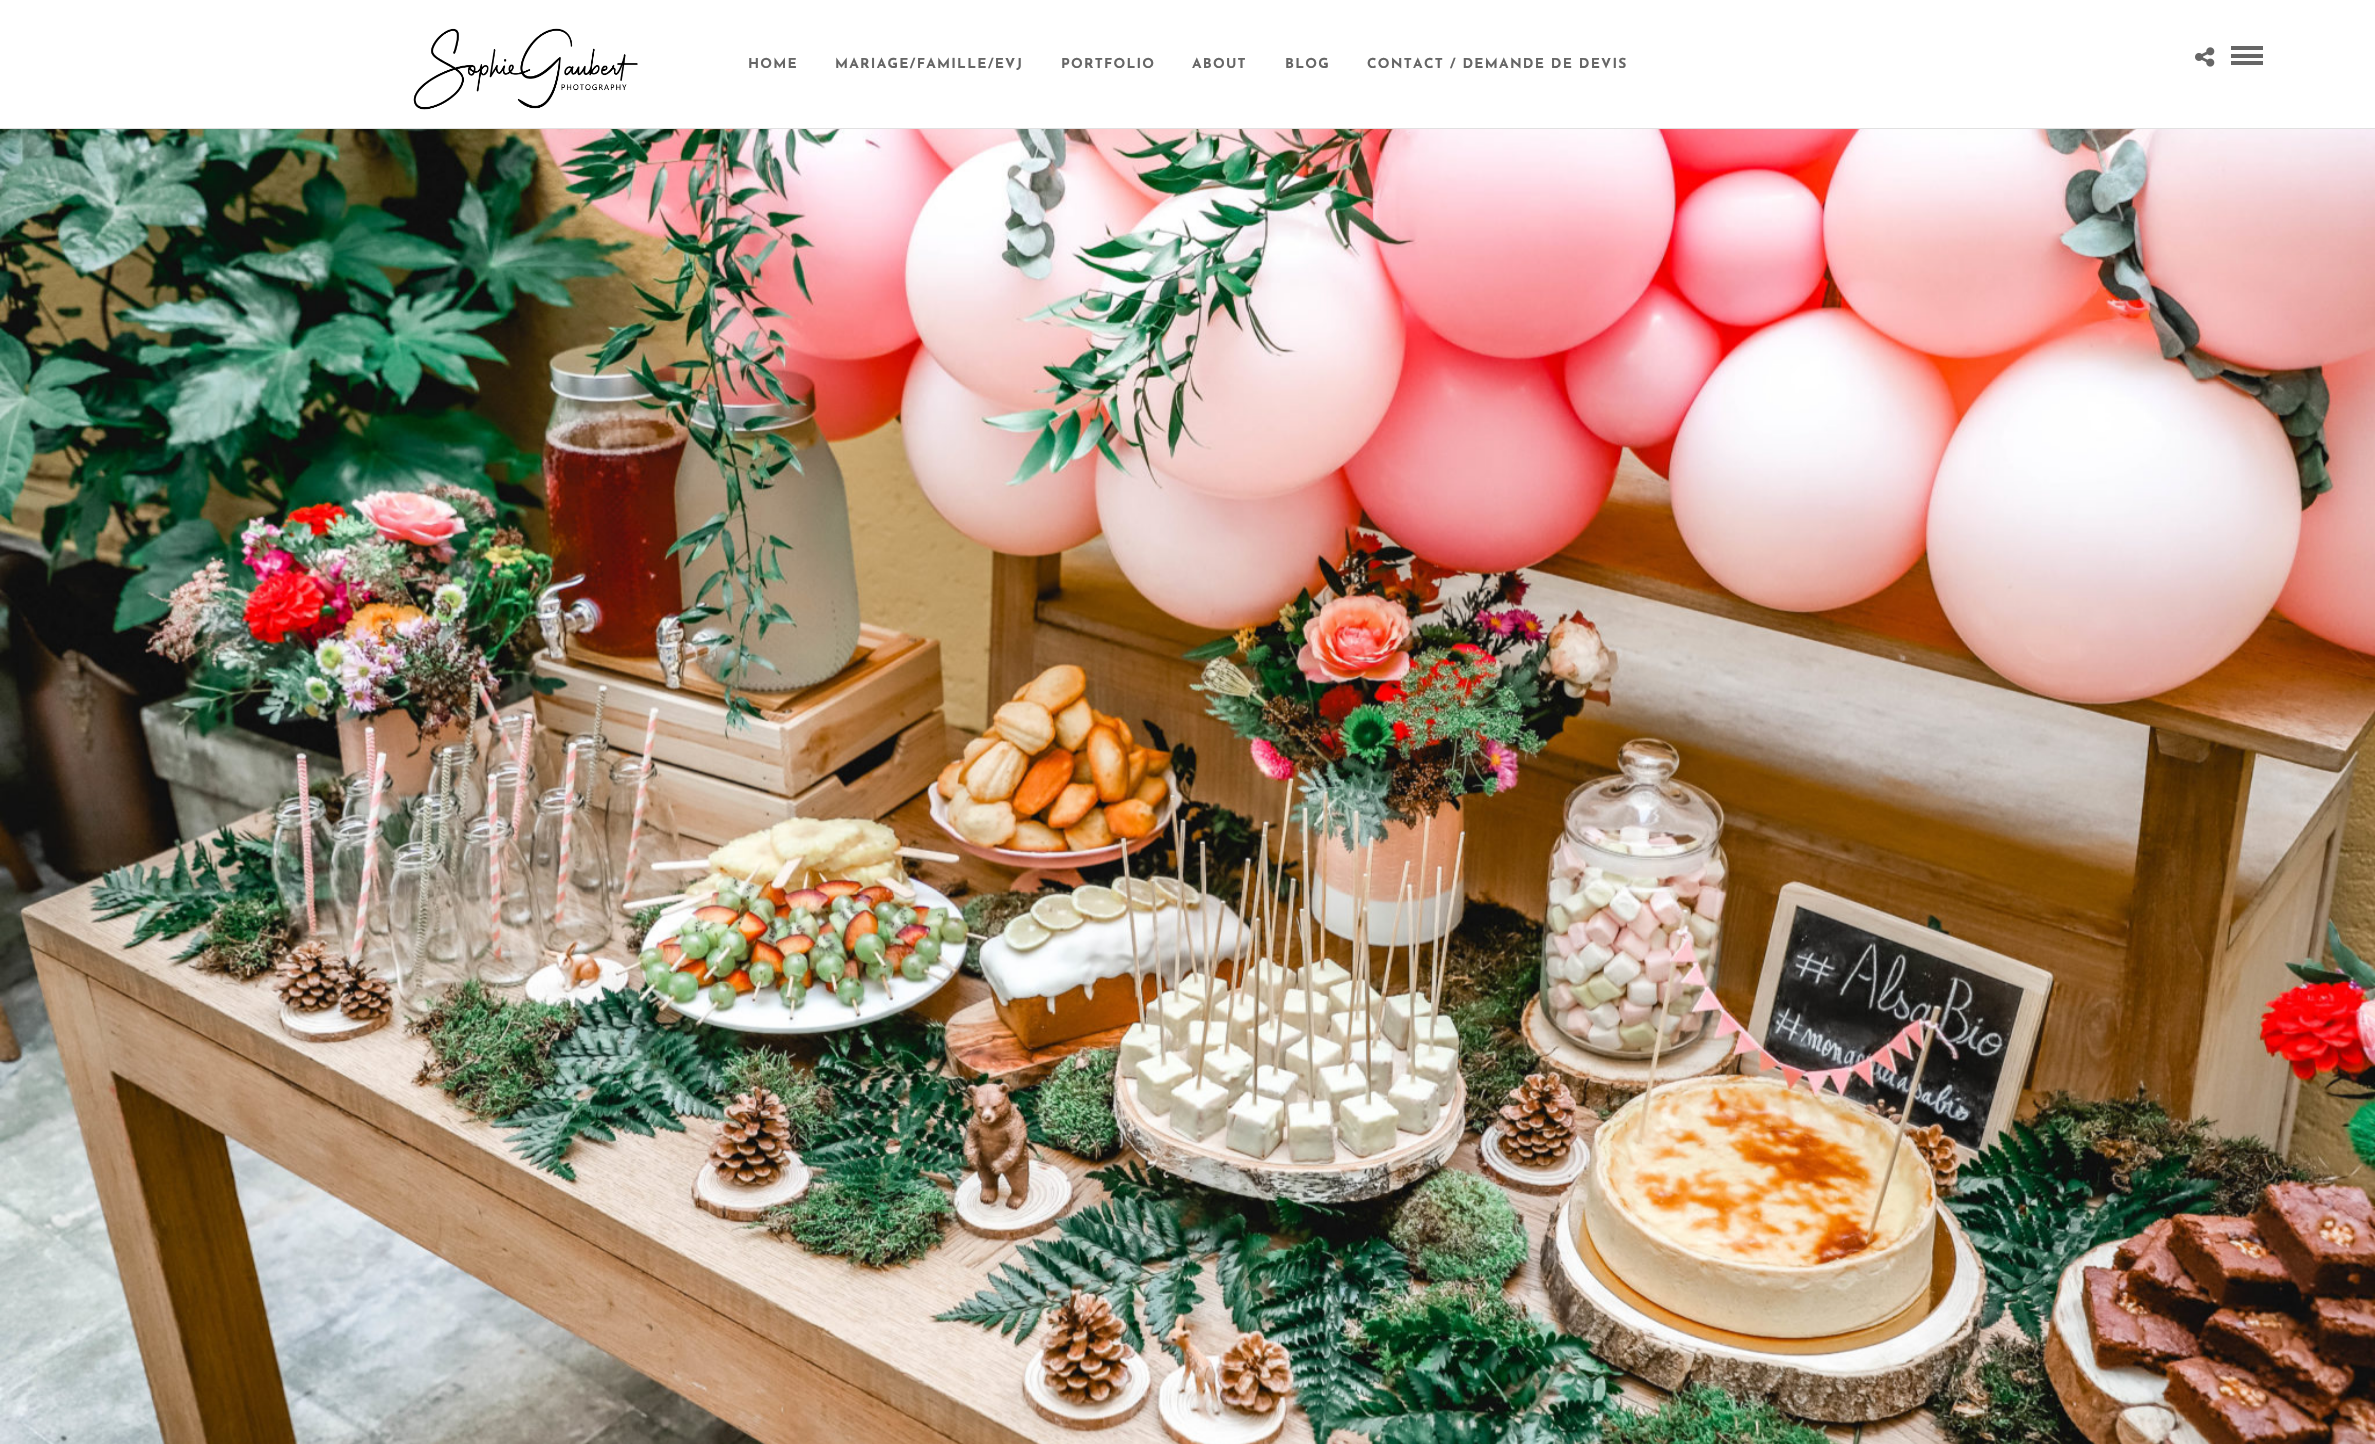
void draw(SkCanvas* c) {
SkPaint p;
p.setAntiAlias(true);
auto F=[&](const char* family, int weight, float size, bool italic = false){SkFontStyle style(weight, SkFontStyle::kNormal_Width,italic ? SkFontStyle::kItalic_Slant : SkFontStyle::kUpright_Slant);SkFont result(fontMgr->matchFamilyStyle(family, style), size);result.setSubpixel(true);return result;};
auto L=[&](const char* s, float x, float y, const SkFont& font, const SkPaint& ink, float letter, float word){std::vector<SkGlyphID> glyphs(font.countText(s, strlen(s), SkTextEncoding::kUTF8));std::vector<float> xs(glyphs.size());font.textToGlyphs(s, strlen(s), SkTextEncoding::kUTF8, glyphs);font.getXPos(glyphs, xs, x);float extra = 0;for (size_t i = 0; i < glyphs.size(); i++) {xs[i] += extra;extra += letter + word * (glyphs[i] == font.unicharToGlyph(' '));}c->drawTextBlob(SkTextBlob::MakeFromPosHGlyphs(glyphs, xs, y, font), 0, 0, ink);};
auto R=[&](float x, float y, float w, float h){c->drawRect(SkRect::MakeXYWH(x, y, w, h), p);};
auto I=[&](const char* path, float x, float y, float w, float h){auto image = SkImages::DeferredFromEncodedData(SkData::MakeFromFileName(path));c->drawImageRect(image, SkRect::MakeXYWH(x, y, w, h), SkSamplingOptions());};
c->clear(0xffffffff);
p.setColor(0xffe1e1e1);
R(0,128,2375,1);
I("1.png",413,28,225,82);
auto f1 = F("Josefin Sans",700,13.75);
p.setColor(0xff666666);
L("HOME",748,68,f1,p,1.25,0);
L("MARIAGE/FAMILLE/EVJ",835,68,f1,p,1.25,0);
L("PORTFOLIO",1061,68,f1,p,1.25,0);
L("ABOUT",1192,68,f1,p,1.25,0);
L("BLOG",1285,68,f1,p,1.25,0);
L("CONTACT / DEMANDE DE DEVIS",1367,68,f1,p,1.25,0);
I("2.png",2195,47,20,20);
R(2231,46,32,4);
R(2231,54,32,4);
R(2231,61,32,4);
I("3.png",0,129,2375,1315);
}
